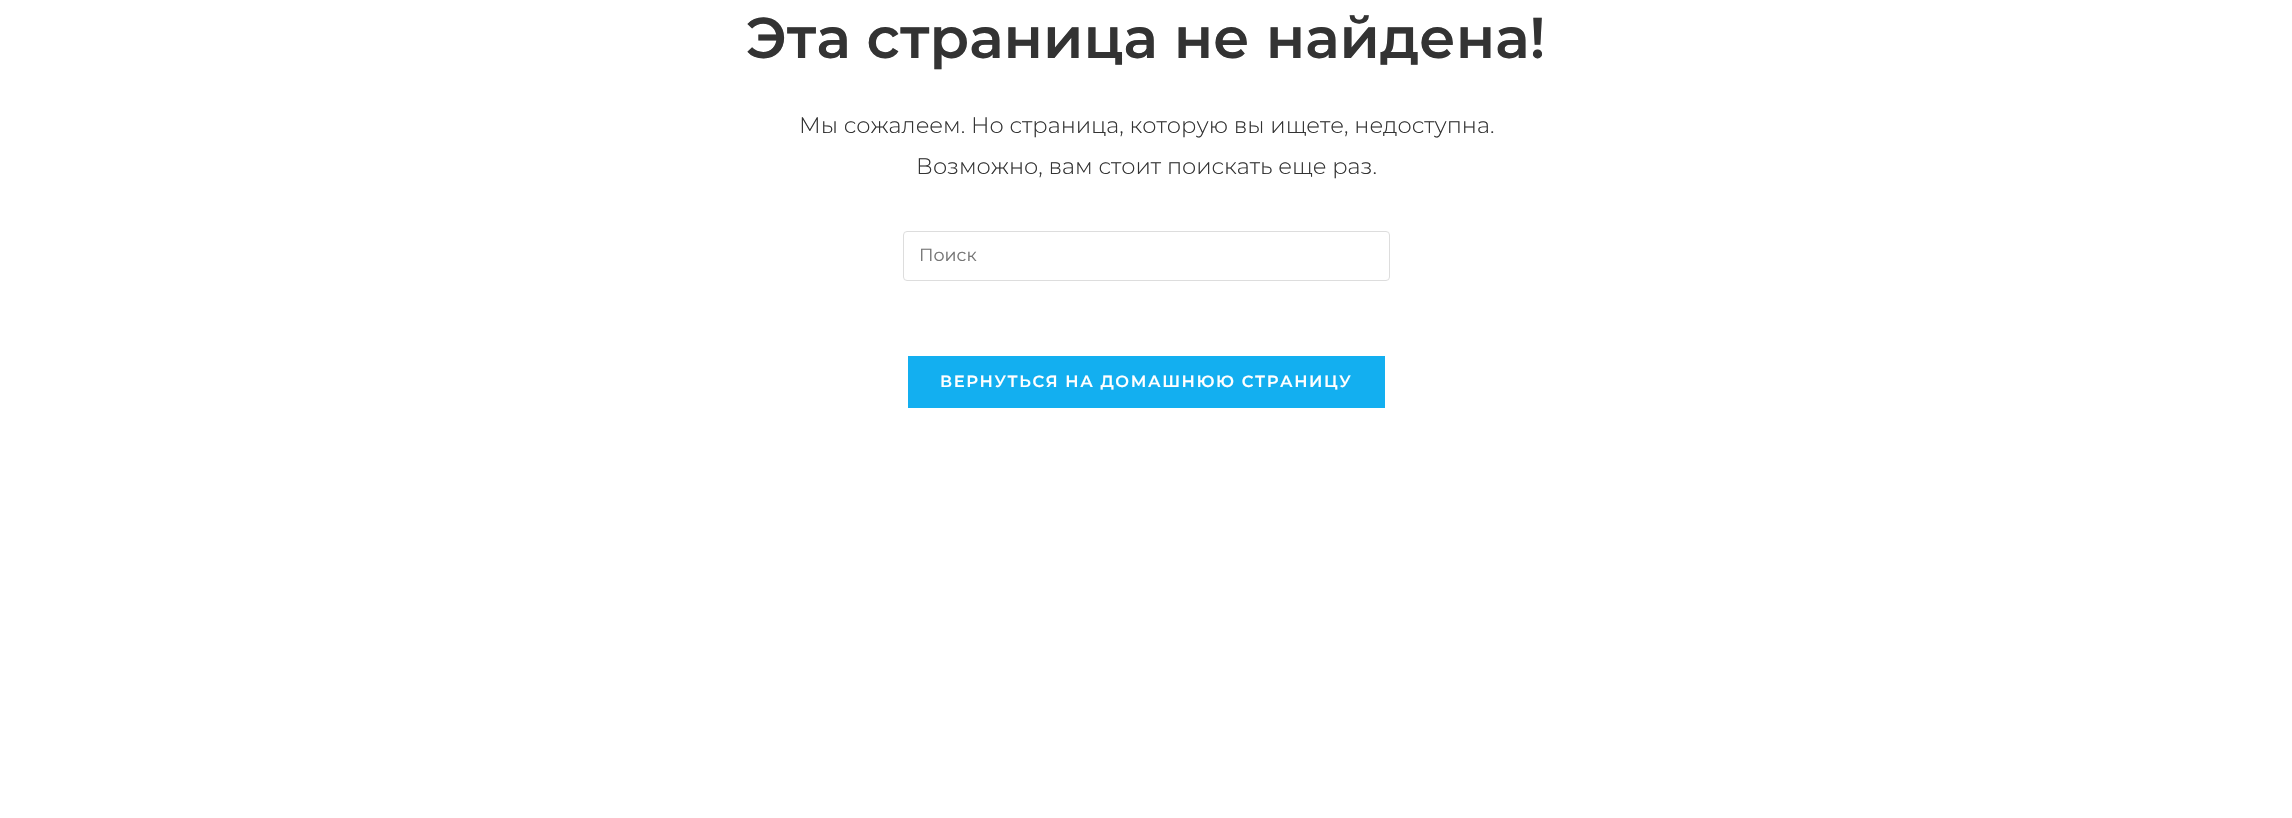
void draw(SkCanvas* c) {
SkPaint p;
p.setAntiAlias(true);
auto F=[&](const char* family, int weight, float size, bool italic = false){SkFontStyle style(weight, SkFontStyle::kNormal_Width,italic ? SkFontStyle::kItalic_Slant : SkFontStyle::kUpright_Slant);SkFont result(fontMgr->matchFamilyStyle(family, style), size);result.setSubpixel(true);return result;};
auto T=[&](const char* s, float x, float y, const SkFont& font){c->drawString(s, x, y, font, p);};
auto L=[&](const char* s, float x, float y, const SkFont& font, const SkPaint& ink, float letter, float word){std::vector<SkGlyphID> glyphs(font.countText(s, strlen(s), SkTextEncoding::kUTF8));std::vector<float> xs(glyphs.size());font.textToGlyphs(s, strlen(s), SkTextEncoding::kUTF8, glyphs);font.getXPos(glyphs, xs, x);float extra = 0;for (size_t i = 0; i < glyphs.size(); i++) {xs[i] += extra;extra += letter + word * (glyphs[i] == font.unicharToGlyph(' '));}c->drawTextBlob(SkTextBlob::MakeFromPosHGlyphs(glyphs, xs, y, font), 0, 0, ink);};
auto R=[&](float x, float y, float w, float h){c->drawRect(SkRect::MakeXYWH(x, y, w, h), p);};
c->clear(0xffffffff);
auto f1 = F("Montserrat",100,57.5);
p.setColor(0xff333333);
T("Эта страница не найдена!",746,58,f1);
auto f2 = F("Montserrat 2",100,22.5);
T("Мы сожалеем. Но страница, которую вы ищете, недоступна.",799,133,f2);
T("Возможно, вам стоит поискать еще раз.",916,174,f2);
p.setStroke(true);
p.setStrokeWidth(1);
p.setColor(0xffdddddd);
c->drawRoundRect(SkRect::MakeXYWH(903.5,231.5,486,49),3.5,3.5,p);
auto f3 = F("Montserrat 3",100,17.5);
p.setStroke(false);
p.setColor(0xff757575);
T("Поиск",919,261,f3);
p.setColor(0xff13aff0);
R(908,356,477,52);
auto f4 = F("Montserrat",100,16.25);
p.setColor(0xffffffff);
L("ВЕРНУТЬСЯ НА ДОМАШНЮЮ СТРАНИЦУ",940,387,f4,p,1.6,0);
}
